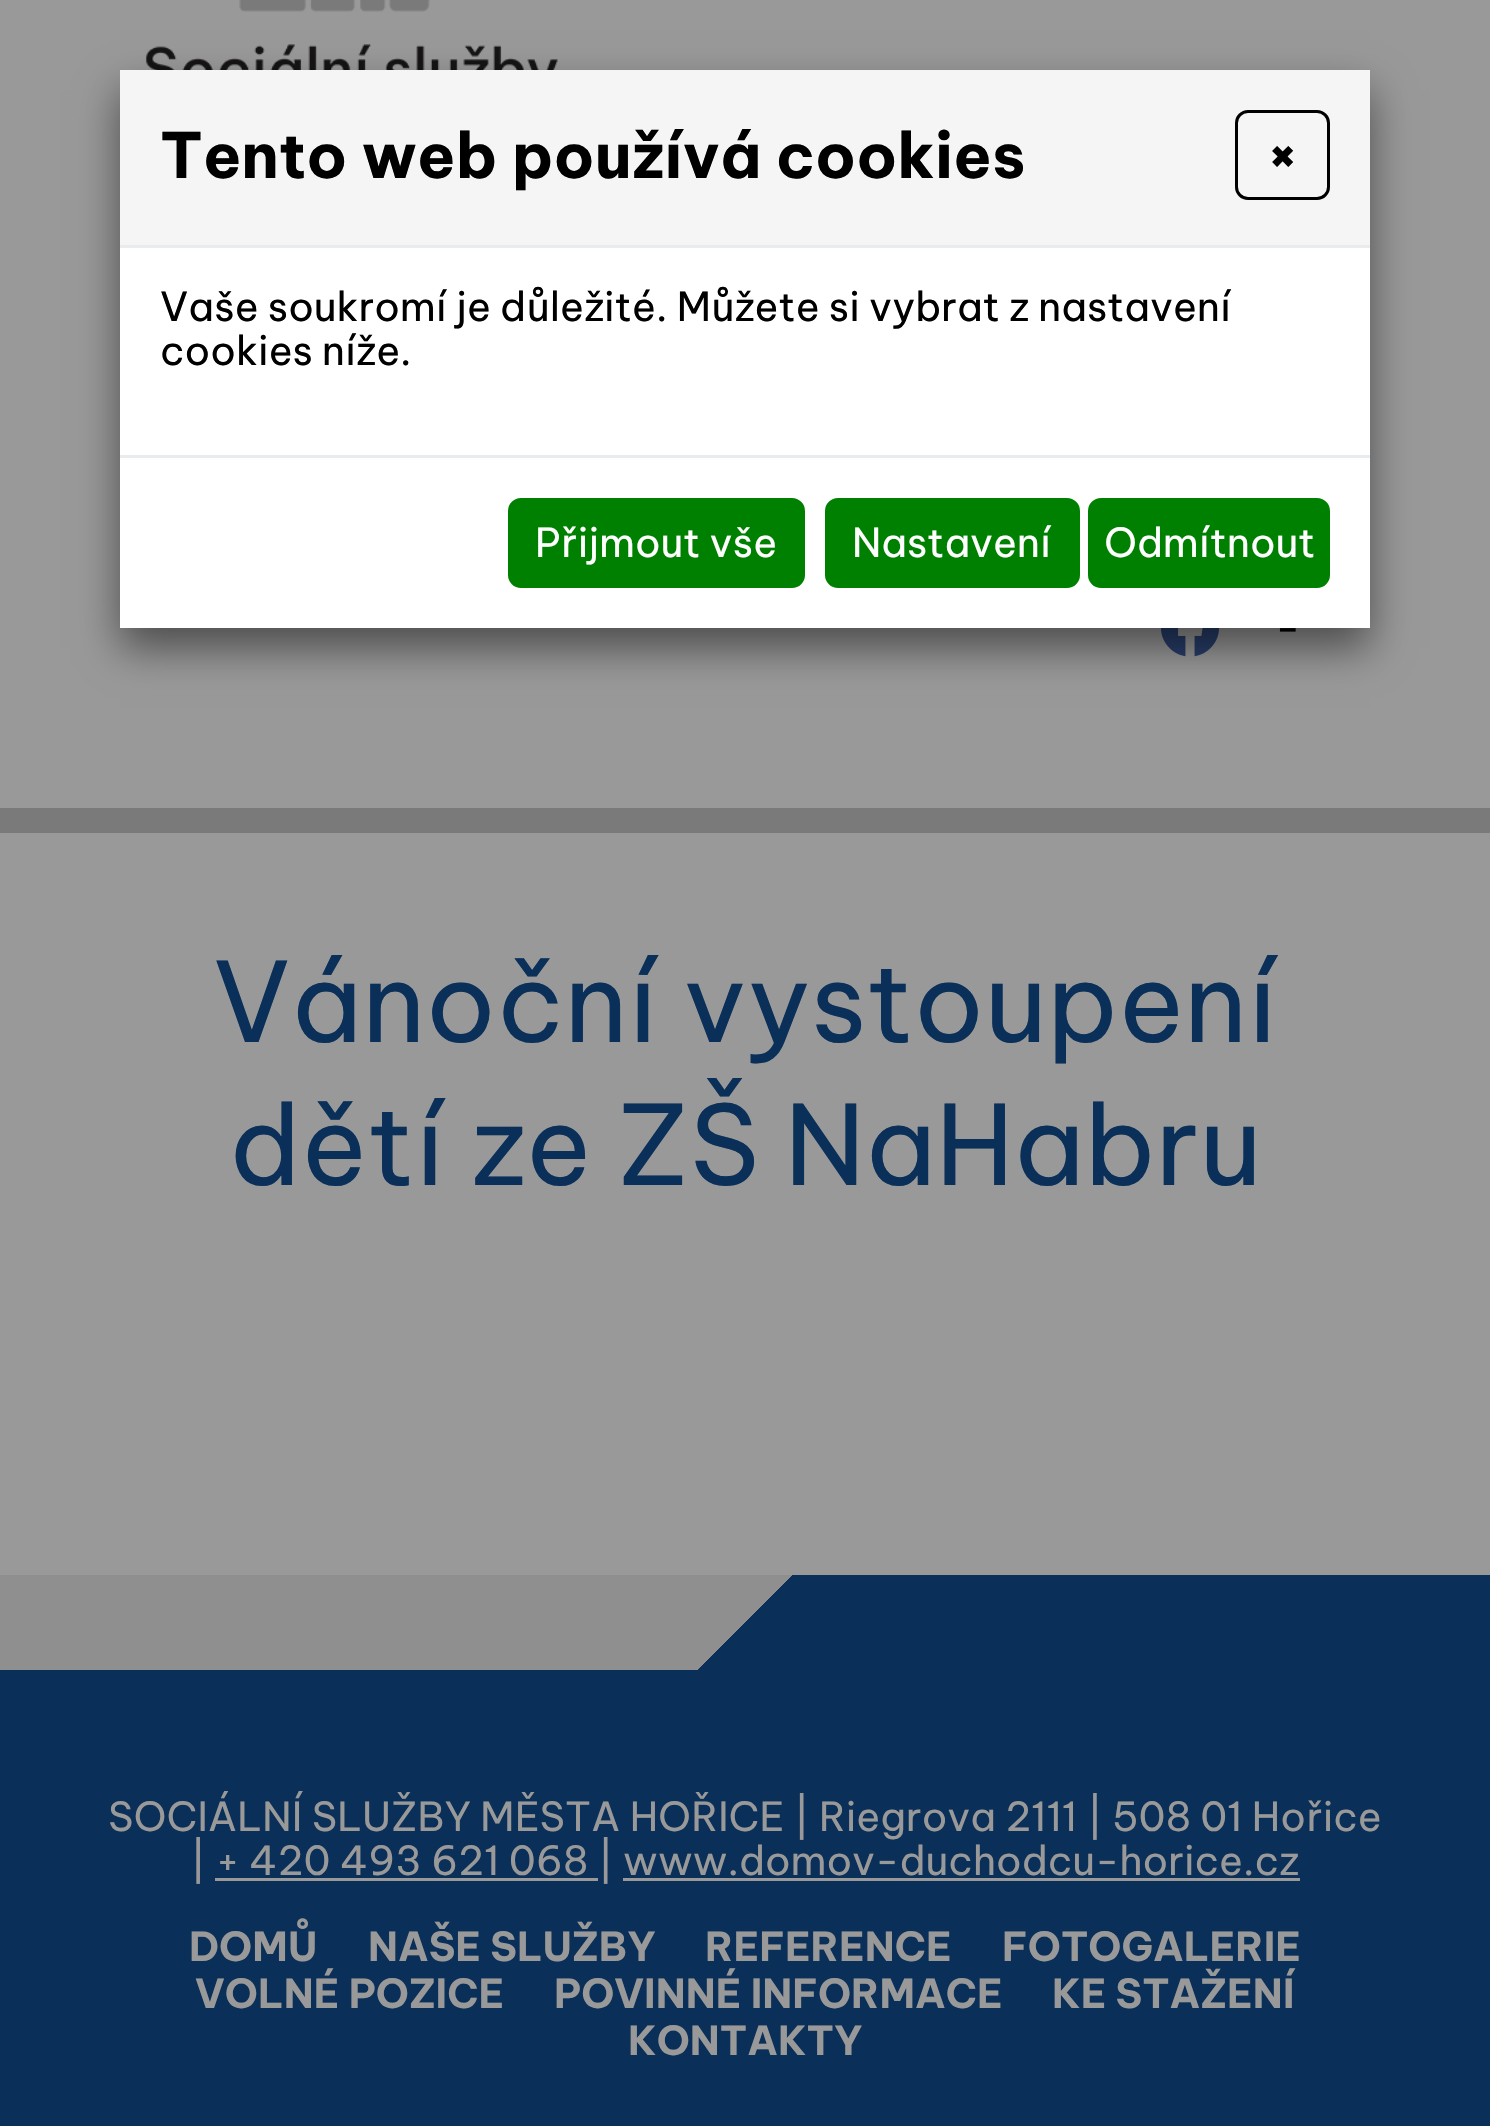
void draw(SkCanvas* c) {
SkPaint p;
p.setAntiAlias(true);
auto F=[&](const char* family, int weight, float size, bool italic = false){SkFontStyle style(weight, SkFontStyle::kNormal_Width,italic ? SkFontStyle::kItalic_Slant : SkFontStyle::kUpright_Slant);SkFont result(fontMgr->matchFamilyStyle(family, style), size);result.setSubpixel(true);return result;};
auto T=[&](const char* s, float x, float y, const SkFont& font){c->drawString(s, x, y, font, p);};
auto R=[&](float x, float y, float w, float h){c->drawRect(SkRect::MakeXYWH(x, y, w, h), p);};
auto I=[&](const char* path, float x, float y, float w, float h){auto image = SkImages::DeferredFromEncodedData(SkData::MakeFromFileName(path));c->drawImageRect(image, SkRect::MakeXYWH(x, y, w, h), SkSamplingOptions());};
c->clear(0xff999999);
I("1.png",145,0,413,70);
I("2.png",1160,628,59,29);
p.setColor(0x80000000);
p.setMaskFilter(SkMaskFilter::MakeBlur(kNormal_SkBlurStyle, 20));
c->drawRect(SkRect::MakeXYWH(120,90,1250,558),p);
p.setMaskFilter(nullptr);
auto f1 = F("Be Vietnam Pro",400,42);
p.setColor(0xff000000);
T("-",1275,643,f1);
p.setColor(0xffffffff);
R(120,248,1250,380);
p.setColor(0xfff5f5f5);
R(120,70,1250,175);
p.setColor(0xffe9ecef);
R(120,245,1250,3);
auto f2 = F("Be Vietnam Pro",700,62.5);
p.setColor(0xff000000);
T("Tento web používá cookies",160,178,f2);
p.setStroke(true);
p.setStrokeWidth(3);
c->drawRoundRect(SkRect::MakeXYWH(1236.5,111.5,92,87),11.5,11.5,p);
auto f3 = F("Be Vietnam Pro",700,53);
p.setStroke(false);
T("×",1266,173,f3);
auto f4 = F("Be Vietnam Pro",400,40);
T("Vaše soukromí je důležité. Můžete si vybrat z nastavení",160,321,f4);
T("cookies níže.",160,365,f4);
p.setColor(0xffe9ecef);
R(120,455,1250,3);
p.setColor(0xff008000);
c->drawRoundRect(SkRect::MakeXYWH(509.5,499.5,294,87),11.5,11.5,p);
p.setStroke(true);
c->drawRoundRect(SkRect::MakeXYWH(509.5,499.5,294,87),11.5,11.5,p);
p.setStroke(false);
p.setColor(0xffffffff);
T("Přijmout vše",535,557,f4);
p.setColor(0xff008000);
c->drawRoundRect(SkRect::MakeXYWH(826.5,499.5,252,87),11.5,11.5,p);
p.setStroke(true);
c->drawRoundRect(SkRect::MakeXYWH(826.5,499.5,252,87),11.5,11.5,p);
p.setStroke(false);
p.setColor(0xffffffff);
T("Nastavení",852,557,f4);
p.setColor(0xff008000);
c->drawRoundRect(SkRect::MakeXYWH(1089.5,499.5,239,87),11.5,11.5,p);
p.setStroke(true);
c->drawRoundRect(SkRect::MakeXYWH(1089.5,499.5,239,87),11.5,11.5,p);
p.setStroke(false);
p.setColor(0xffffffff);
T("Odmítnout",1104,557,f4);
p.setColor(0xff7a7a7a);
R(0,808,1490,25);
auto f5 = F("Be Vietnam Pro",400,110);
p.setColor(0xff0a2f58);
T("Vánoční vystoupení",213,1042,f5);
T("dětí ze ZŠ NaHabru",229,1185,f5);
{
const SkColor colors[] = {0xff8f8f8f,0xff0a2f58};
const float stops[] = {.5,.5};
const SkPoint ends[] = {{349,1226}, {1141,2019}};
p.setShader(SkGradientShader::MakeLinear(ends, colors, stops, 2, SkTileMode::kClamp));
p.setAlpha(255);
}
R(0,1575,1490,95);
p.setShader(nullptr);
p.setColor(0xff0a2f58);
R(0,1670,1490,456);
p.setColor(0xff999999);
T("SOCIÁLNÍ SLUŽBY MĚSTA HOŘICE | Riegrova 2111 | 508 01 Hořice",108,1831,f4);
T("| + 420 493 621 068 | www.domov-duchodcu-horice.cz",190,1875,f4);
R(215,1878,383,3);
R(623,1878,677,3);
auto f6 = F("Be Vietnam Pro",700,40);
T("DOMŮ",189,1961,f6);
T("NAŠE SLUŽBY",368,1961,f6);
T("REFERENCE",705,1961,f6);
T("FOTOGALERIE",1002,1961,f6);
T("VOLNÉ POZICE",195,2008,f6);
T("POVINNÉ INFORMACE",554,2008,f6);
T("KE STAŽENÍ",1052,2008,f6);
T("KONTAKTY",628,2055,f6);
}
